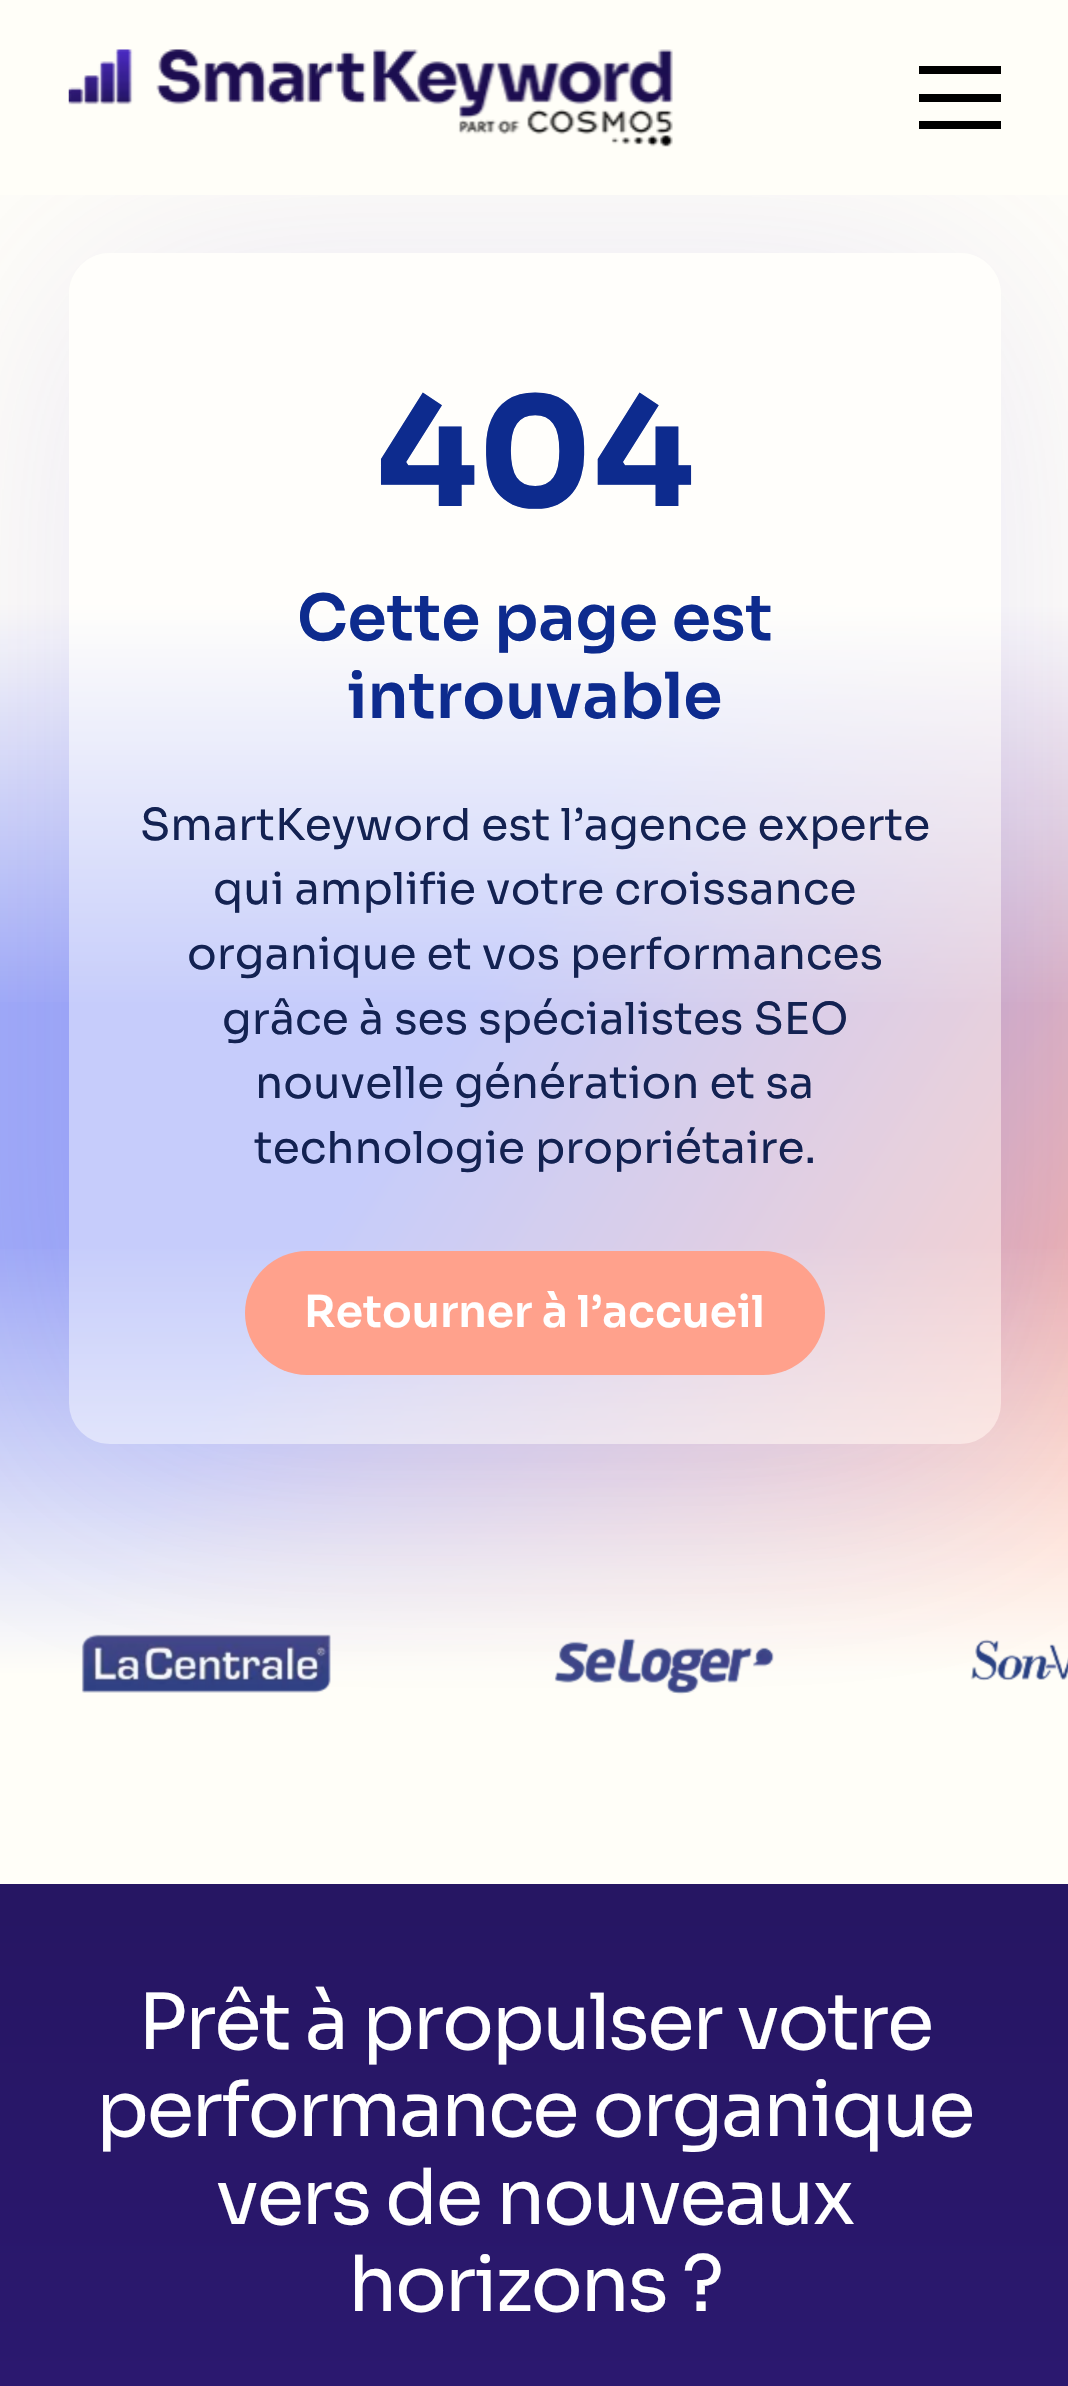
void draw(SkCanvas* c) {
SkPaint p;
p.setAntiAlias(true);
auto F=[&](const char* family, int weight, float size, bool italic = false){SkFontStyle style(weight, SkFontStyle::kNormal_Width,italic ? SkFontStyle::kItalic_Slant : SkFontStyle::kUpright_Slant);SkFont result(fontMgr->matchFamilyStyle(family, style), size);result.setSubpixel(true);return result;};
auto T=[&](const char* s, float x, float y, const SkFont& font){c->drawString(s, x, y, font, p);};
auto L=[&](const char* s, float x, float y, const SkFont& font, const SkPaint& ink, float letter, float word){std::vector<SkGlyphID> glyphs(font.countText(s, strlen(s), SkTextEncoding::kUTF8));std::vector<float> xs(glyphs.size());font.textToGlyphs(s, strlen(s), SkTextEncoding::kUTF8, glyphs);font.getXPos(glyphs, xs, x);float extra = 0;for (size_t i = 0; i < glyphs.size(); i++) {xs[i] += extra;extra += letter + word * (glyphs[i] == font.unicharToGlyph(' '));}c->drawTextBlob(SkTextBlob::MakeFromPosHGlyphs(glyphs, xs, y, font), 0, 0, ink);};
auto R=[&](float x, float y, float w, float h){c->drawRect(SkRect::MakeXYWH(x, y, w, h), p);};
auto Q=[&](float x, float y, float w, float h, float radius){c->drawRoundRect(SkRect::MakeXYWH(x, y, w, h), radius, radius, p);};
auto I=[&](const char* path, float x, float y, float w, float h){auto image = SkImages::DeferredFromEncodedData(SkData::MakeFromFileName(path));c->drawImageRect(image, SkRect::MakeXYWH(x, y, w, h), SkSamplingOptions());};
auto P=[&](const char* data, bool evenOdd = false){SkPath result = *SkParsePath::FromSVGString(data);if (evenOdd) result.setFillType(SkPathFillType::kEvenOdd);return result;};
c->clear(0xfffffef8);
{
const SkColor colors[] = {0xccffa18c,0xcc8795f8};
const float stops[] = {.21,.65};
const SkPoint ends[] = {{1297,1889}, {-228,910}};
p.setShader(SkGradientShader::MakeLinear(ends, colors, stops, 2, SkTileMode::kClamp));
p.setAlpha(255);
}
R(0,604,1068,1071);
{
const SkColor colors[] = {0xfffffef8,0x00fffef8};
const float stops[] = {.55,1};
const SkPoint ends[] = {{535,99}, {535,1012}};
p.setShader(SkGradientShader::MakeLinear(ends, colors, stops, 2, SkTileMode::kClamp));
p.setAlpha(255);
}
R(0,604,1068,398);
{
const SkColor colors[] = {0xfffffef8,0x00fffef8};
const float stops[] = {.32,1};
const SkPoint ends[] = {{535,1884}, {535,1238}};
p.setShader(SkGradientShader::MakeLinear(ends, colors, stops, 2, SkTileMode::kClamp));
p.setAlpha(255);
}
R(0,1249,1068,426);
c->save();
c->clipRect(SkRect::MakeXYWH(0,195,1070,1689));
c->clipPath(P("M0 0h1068v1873h-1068zm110 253h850c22.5 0 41 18.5 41 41v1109c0 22.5-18.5 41-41 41h-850c-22.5 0-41-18.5-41-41v-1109c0-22.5 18.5-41 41-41z",true),true);
p.setShader(nullptr);
p.setColor(0x266b5be5);
p.setMaskFilter(SkMaskFilter::MakeBlur(kNormal_SkBlurStyle, 139));
c->drawRoundRect(SkRect::MakeXYWH(69,264,932,1191),41,41,p);
p.setMaskFilter(nullptr);
c->restore();
I("1.png",68,49,605,98);
p.setColor(0xff000000);
R(919,66,82,8);
R(919,94,82,8);
R(919,121,82,8);
p.setColor(0x66ffffff);
Q(69,253,932,1191,41);
auto f1 = F("Sora",700,151);
p.setColor(0xff0d2b8e);
T("404",376,506,f1);
auto f2 = F("Sora",600,63.25);
T("Cette page est",297,640,f2);
T("introuvable",347,718,f2);
auto f3 = F("Sora",400,44);
p.setColor(0xff132252);
T("SmartKeyword est l’agence experte",140,840,f3);
T("qui amplifie votre croissance",213,904,f3);
T("organique et vos performances",187,969,f3);
T("grâce à ses spécialistes SEO",222,1034,f3);
T("nouvelle génération et sa",255,1098,f3);
T("technologie propriétaire.",254,1163,f3);
p.setColor(0xffffa18c);
Q(245,1251,580,124,62);
auto f4 = F("Sora",600,44);
p.setColor(0xffffffff);
T("Retourner à l’accueil",304,1327,f4);
I("2.png",81,1634,250,59);
I("3.png",554,1638,220,57);
I("4.png",970,1639,98,42);
{
const SkColor colors[] = {0xff251560,0xff4c2bc6};
const float stops[] = {0,1};
const SkPoint ends[] = {{535,1788}, {535,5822}};
p.setShader(SkGradientShader::MakeLinear(ends, colors, stops, 2, SkTileMode::kClamp));
p.setAlpha(255);
}
R(0,1884,1068,502);
auto f5 = F("Sora",400,77);
p.setShader(nullptr);
p.setColor(0xffffffff);
L("Prêt à propulser votre",138,2049,f5,p,-2.3,0);
L("performance organique",96,2136,f5,p,-2.3,0);
L("vers de nouveaux",216,2224,f5,p,-2.3,0);
L("horizons ?",348,2311,f5,p,-2.3,0);
}
